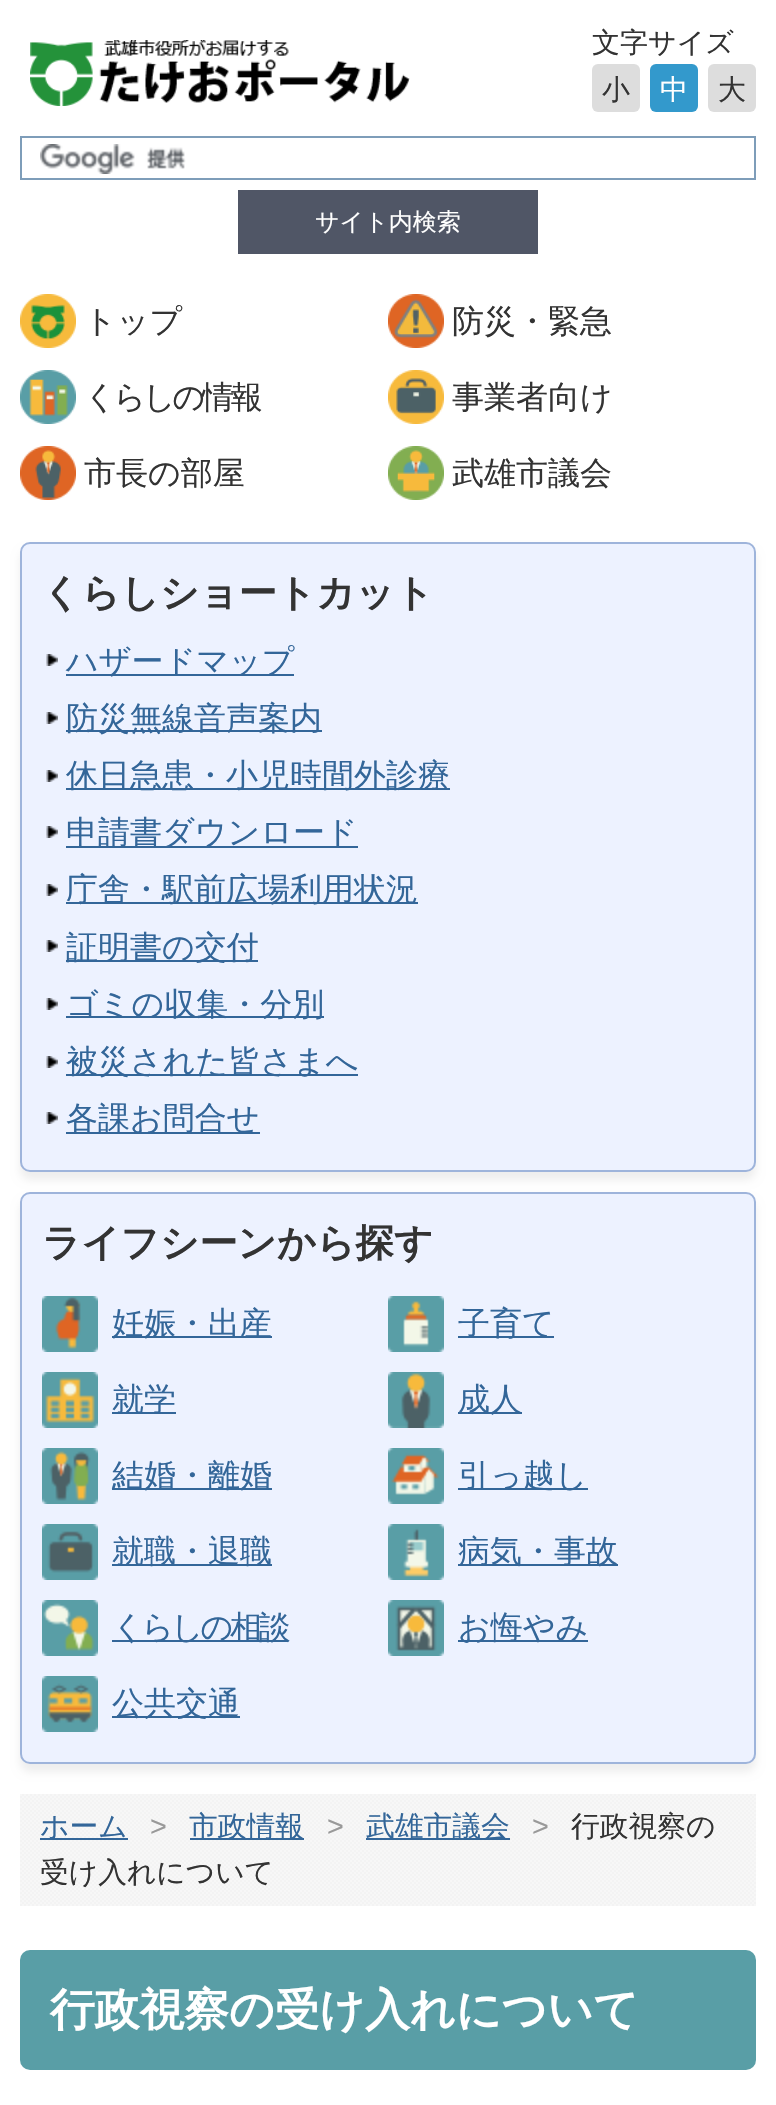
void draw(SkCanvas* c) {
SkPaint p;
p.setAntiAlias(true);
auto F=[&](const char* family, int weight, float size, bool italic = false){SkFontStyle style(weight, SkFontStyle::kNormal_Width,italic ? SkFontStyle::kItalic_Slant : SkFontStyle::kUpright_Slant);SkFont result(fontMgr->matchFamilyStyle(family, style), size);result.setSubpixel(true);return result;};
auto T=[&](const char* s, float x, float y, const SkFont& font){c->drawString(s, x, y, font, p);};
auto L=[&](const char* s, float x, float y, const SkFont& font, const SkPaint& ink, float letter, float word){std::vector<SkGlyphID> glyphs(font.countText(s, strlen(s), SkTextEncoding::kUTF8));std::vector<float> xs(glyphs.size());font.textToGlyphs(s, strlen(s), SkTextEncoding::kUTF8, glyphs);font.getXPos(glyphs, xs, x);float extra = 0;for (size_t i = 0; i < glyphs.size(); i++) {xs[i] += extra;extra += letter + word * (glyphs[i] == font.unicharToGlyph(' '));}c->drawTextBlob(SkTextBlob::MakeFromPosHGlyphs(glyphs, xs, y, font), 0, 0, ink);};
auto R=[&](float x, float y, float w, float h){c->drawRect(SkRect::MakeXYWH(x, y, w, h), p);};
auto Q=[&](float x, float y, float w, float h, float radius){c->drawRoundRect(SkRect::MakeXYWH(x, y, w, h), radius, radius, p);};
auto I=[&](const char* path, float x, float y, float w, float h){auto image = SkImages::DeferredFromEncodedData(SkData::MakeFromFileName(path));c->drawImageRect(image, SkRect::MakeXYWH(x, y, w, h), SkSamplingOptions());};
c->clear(0xffffffff);
I("1.png",30,40,380,66);
auto f1 = F("WenQuanYi Zen Hei",500,28);
p.setColor(0xff333333);
T("文字サイズ",592,52,f1);
p.setColor(0xffdddddd);
Q(592,64,48,48,6);
p.setColor(0xff333333);
T("小",602,99,f1);
p.setColor(0xff3399cc);
Q(650,64,48,48,6);
p.setColor(0xffffffff);
T("中",660,99,f1);
p.setColor(0xffdddddd);
Q(708,64,48,48,6);
p.setColor(0xff333333);
T("大",718,99,f1);
I("2.png",40,144,146,30);
p.setStroke(true);
p.setStrokeWidth(2);
p.setColor(0xff7e9db9);
c->drawRect(SkRect::MakeXYWH(21,137,734,42),p);
p.setStroke(false);
p.setColor(0xff505666);
R(238,190,300,64);
auto f2 = F("WenQuanYi Zen Hei",500,24);
p.setColor(0xffffffff);
T("サイト内検索",315,230,f2);
I("3.png",20,294,56,54);
auto f3 = F("WenQuanYi Zen Hei",500,32);
p.setColor(0xff333333);
T("トップ",84,332,f3);
I("4.png",388,294,56,54);
T("防災・緊急",452,332,f3);
I("5.png",20,370,56,54);
L("くらしの情報",84,408,f3,p,-3.25,0);
I("6.png",388,370,56,54);
T("事業者向け",452,408,f3);
I("7.png",20,446,56,54);
T("市長の部屋",84,484,f3);
I("8.png",388,446,56,54);
T("武雄市議会",452,484,f3);
p.setColor(0xffeeeeee);
p.setMaskFilter(SkMaskFilter::MakeBlur(kNormal_SkBlurStyle, 4));
c->drawRoundRect(SkRect::MakeXYWH(20,550,736,630),10,10,p);
p.setMaskFilter(nullptr);
p.setColor(0xffedf2ff);
c->drawRoundRect(SkRect::MakeXYWH(21,543,734,628),9,9,p);
p.setStroke(true);
p.setColor(0xff9eb4db);
c->drawRoundRect(SkRect::MakeXYWH(21,543,734,628),9,9,p);
auto f4 = F("WenQuanYi Zen Hei",700,38.4);
p.setStroke(false);
p.setColor(0xff333333);
T("くらしショートカット",42,606,f4);
I("9.png",46,654,12,12);
p.setColor(0xff336699);
R(66,674,228,2);
T("ハザードマップ",66,672,f3);
I("9.png",46,712,12,12);
R(66,730,256,2);
T("防災無線音声案内",66,729,f3);
I("9.png",46,770,12,12);
R(66,788,384,2);
T("休日急患・小児時間外診療",66,786,f3);
I("9.png",46,826,12,12);
R(66,846,292,2);
T("申請書ダウンロード",66,843,f3);
I("9.png",46,884,12,12);
R(66,902,352,2);
T("庁舎・駅前広場利用状況",66,900,f3);
I("9.png",46,940,12,12);
R(66,960,192,2);
T("証明書の交付",66,958,f3);
I("9.png",46,998,12,12);
R(66,1016,258,2);
T("ゴミの収集・分別",66,1015,f3);
I("9.png",46,1056,12,12);
R(66,1074,292,2);
T("被災された皆さまへ",66,1072,f3);
I("9.png",46,1112,12,12);
R(66,1132,194,2);
T("各課お問合せ",66,1129,f3);
p.setColor(0xffeeeeee);
p.setMaskFilter(SkMaskFilter::MakeBlur(kNormal_SkBlurStyle, 4));
c->drawRoundRect(SkRect::MakeXYWH(20,1200,736,572),10,10,p);
p.setMaskFilter(nullptr);
p.setColor(0xffedf2ff);
c->drawRoundRect(SkRect::MakeXYWH(21,1193,734,570),9,9,p);
p.setStroke(true);
p.setColor(0xff9eb4db);
c->drawRoundRect(SkRect::MakeXYWH(21,1193,734,570),9,9,p);
p.setStroke(false);
p.setColor(0xff333333);
T("ライフシーンから探す",42,1256,f4);
I("10.png",42,1296,56,56);
p.setColor(0xff336699);
R(112,1336,160,2);
T("妊娠・出産",112,1334,f3);
I("11.png",388,1296,56,56);
R(458,1336,96,2);
T("子育て",458,1334,f3);
I("12.png",42,1372,56,56);
R(112,1412,64,2);
T("就学",112,1410,f3);
I("13.png",388,1372,56,56);
R(458,1412,64,2);
T("成人",458,1410,f3);
I("14.png",42,1448,56,56);
R(112,1488,160,2);
T("結婚・離婚",112,1486,f3);
I("15.png",388,1448,56,56);
R(458,1488,130,2);
T("引っ越し",458,1486,f3);
I("16.png",42,1524,56,56);
R(112,1564,160,2);
T("就職・退職",112,1562,f3);
I("17.png",388,1524,56,56);
R(458,1564,160,2);
T("病気・事故",458,1562,f3);
I("18.png",42,1600,56,56);
R(112,1640,176,2);
L("くらしの相談",112,1638,f3,p,-3.25,0);
I("19.png",388,1600,56,56);
R(458,1640,130,2);
T("お悔やみ",458,1638,f3);
I("20.png",42,1676,56,56);
R(112,1716,128,2);
T("公共交通",112,1714,f3);
I("21.png",20,1794,736,112);
R(40,1838,88,2);
auto f5 = F("WenQuanYi Zen Hei",500,28.75);
T("ホーム",40,1836,f5);
auto f6 = F("Liberation Sans",400,28.75);
p.setColor(0xff999999);
T(">",150,1836,f6);
p.setColor(0xff336699);
R(190,1838,114,2);
T("市政情報",189,1836,f5);
p.setColor(0xff999999);
T(">",327,1836,f6);
p.setColor(0xff336699);
R(366,1838,144,2);
T("武雄市議会",366,1836,f5);
p.setColor(0xff999999);
T(">",532,1836,f6);
p.setColor(0xff333333);
T("行政視察の",571,1836,f5);
T("受け入れについて",40,1882,f5);
p.setColor(0xff599ea6);
Q(20,1950,736,120,10);
auto f7 = F("WenQuanYi Zen Hei",700,44.75);
p.setColor(0xffffffff);
T("行政視察の受け入れについて",50,2025,f7);
}
